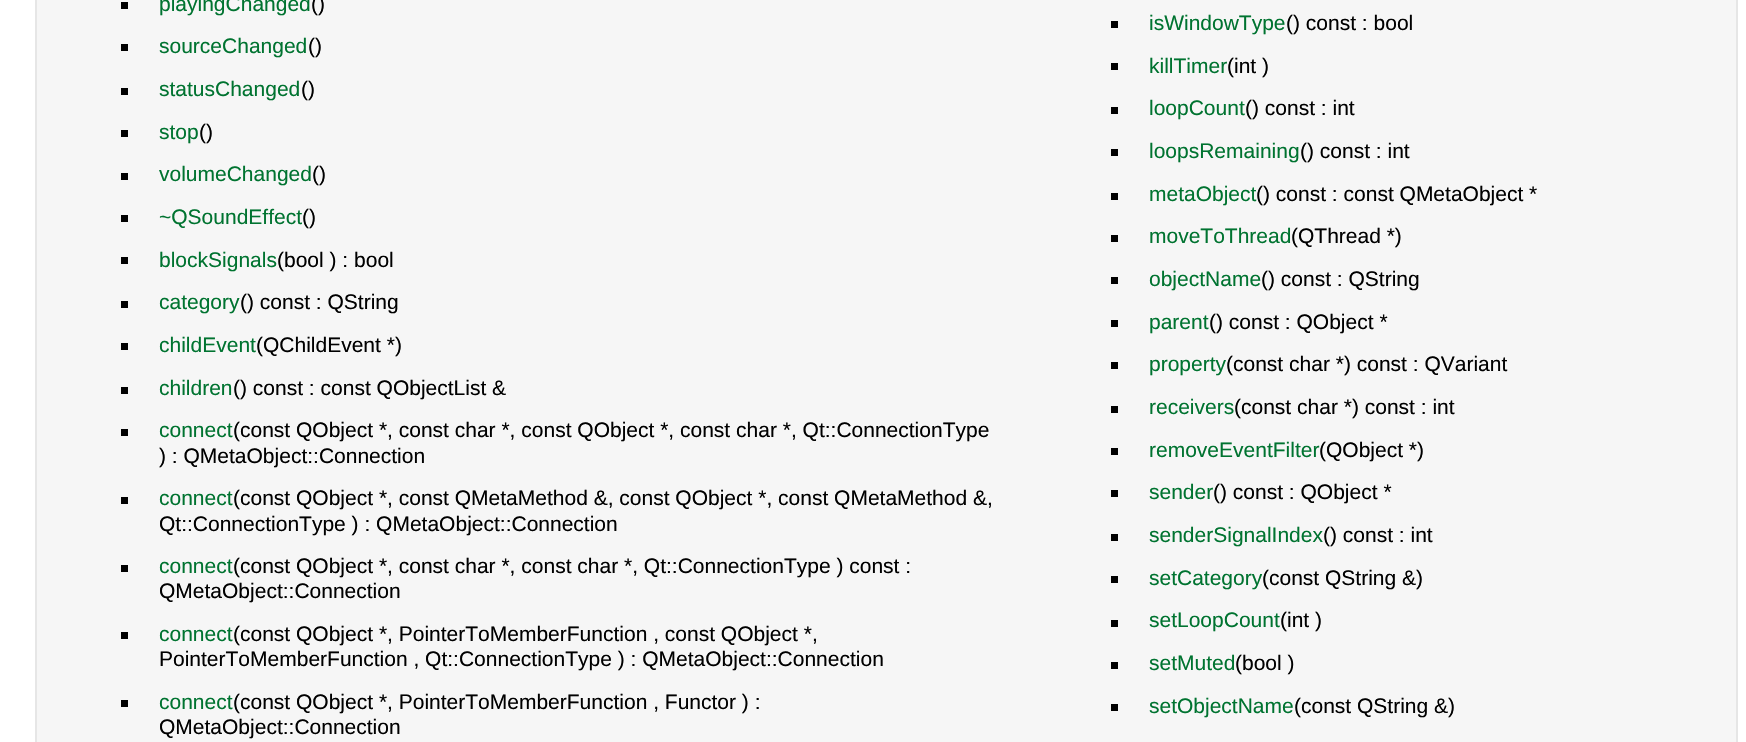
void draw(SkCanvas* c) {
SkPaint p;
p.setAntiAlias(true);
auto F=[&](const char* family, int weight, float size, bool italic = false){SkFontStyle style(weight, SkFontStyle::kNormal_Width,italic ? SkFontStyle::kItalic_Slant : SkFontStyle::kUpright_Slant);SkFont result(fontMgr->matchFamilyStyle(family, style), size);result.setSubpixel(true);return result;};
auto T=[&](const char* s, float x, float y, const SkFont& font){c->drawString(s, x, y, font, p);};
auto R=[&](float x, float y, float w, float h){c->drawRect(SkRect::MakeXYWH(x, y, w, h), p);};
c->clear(0xffffffff);
p.setColor(0xfff6f6f6);
c->drawRect(SkRect::MakeXYWH(36,-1,1701,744),p);
p.setStroke(true);
p.setStrokeWidth(2);
p.setColor(0xffe6e6e6);
c->drawRect(SkRect::MakeXYWH(36,-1,1701,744),p);
p.setStroke(false);
p.setColor(0xff000000);
R(121,2,7,7);
auto f1 = F("Liberation Sans",400,21);
p.setColor(0xff007330);
T("playingChanged",159,11,f1);
p.setColor(0xff000000);
T("()",311,11,f1);
R(121,44,7,7);
p.setColor(0xff007330);
T("sourceChanged",159,53,f1);
p.setColor(0xff000000);
T("()",308,53,f1);
R(121,88,7,7);
p.setColor(0xff007330);
T("statusChanged",159,96,f1);
p.setColor(0xff000000);
T("()",301,96,f1);
R(121,130,7,7);
p.setColor(0xff007330);
T("stop",159,139,f1);
p.setColor(0xff000000);
T("()",199,139,f1);
R(121,173,7,7);
p.setColor(0xff007330);
T("volumeChanged",159,181,f1);
p.setColor(0xff000000);
T("()",312,181,f1);
R(121,215,7,7);
p.setColor(0xff007330);
T("~QSoundEffect",159,224,f1);
p.setColor(0xff000000);
T("()",302,224,f1);
R(121,257,7,7);
p.setColor(0xff007330);
T("blockSignals",159,267,f1);
p.setColor(0xff000000);
T("(bool ) : bool",277,267,f1);
R(121,301,7,7);
p.setColor(0xff007330);
T("category",159,309,f1);
p.setColor(0xff000000);
T("() const : QString",240,309,f1);
R(121,343,7,7);
p.setColor(0xff007330);
T("childEvent",159,352,f1);
p.setColor(0xff000000);
T("(QChildEvent *)",256,352,f1);
R(121,387,7,7);
p.setColor(0xff007330);
T("children",159,395,f1);
p.setColor(0xff000000);
T("() const : const QObjectList &",233,395,f1);
R(121,429,7,7);
p.setColor(0xff007330);
T("connect",159,437,f1);
p.setColor(0xff000000);
T("(const QObject *, const char *, const QObject *, const char *, Qt::ConnectionType",233,437,f1);
T(") : QMetaObject::Connection",159,463,f1);
R(121,497,7,7);
p.setColor(0xff007330);
T("connect",159,505,f1);
p.setColor(0xff000000);
T("(const QObject *, const QMetaMethod &, const QObject *, const QMetaMethod &,",233,505,f1);
T("Qt::ConnectionType ) : QMetaObject::Connection",159,531,f1);
R(121,565,7,7);
p.setColor(0xff007330);
T("connect",159,573,f1);
p.setColor(0xff000000);
T("(const QObject *, const char *, const char *, Qt::ConnectionType ) const :",233,573,f1);
T("QMetaObject::Connection",159,598,f1);
R(121,632,7,7);
p.setColor(0xff007330);
T("connect",159,641,f1);
p.setColor(0xff000000);
T("(const QObject *, PointerToMemberFunction , const QObject *,",233,641,f1);
T("PointerToMemberFunction , Qt::ConnectionType ) : QMetaObject::Connection",159,666,f1);
R(121,700,7,7);
p.setColor(0xff007330);
T("connect",159,709,f1);
p.setColor(0xff000000);
T("(const QObject *, PointerToMemberFunction , Functor ) :",233,709,f1);
T("QMetaObject::Connection",159,734,f1);
R(1111,21,7,7);
p.setColor(0xff007330);
T("isWindowType",1149,30,f1);
p.setColor(0xff000000);
T("() const : bool",1286,30,f1);
R(1111,63,7,7);
p.setColor(0xff007330);
T("killTimer",1149,73,f1);
p.setColor(0xff000000);
T("(int )",1227,73,f1);
R(1111,107,7,7);
p.setColor(0xff007330);
T("loopCount",1149,115,f1);
p.setColor(0xff000000);
T("() const : int",1245,115,f1);
R(1111,149,7,7);
p.setColor(0xff007330);
T("loopsRemaining",1149,158,f1);
p.setColor(0xff000000);
T("() const : int",1300,158,f1);
R(1111,193,7,7);
p.setColor(0xff007330);
T("metaObject",1149,201,f1);
p.setColor(0xff000000);
T("() const : const QMetaObject *",1256,201,f1);
R(1111,235,7,7);
p.setColor(0xff007330);
T("moveToThread",1149,243,f1);
p.setColor(0xff000000);
T("(QThread *)",1291,243,f1);
R(1111,277,7,7);
p.setColor(0xff007330);
T("objectName",1149,286,f1);
p.setColor(0xff000000);
T("() const : QString",1261,286,f1);
R(1111,320,7,7);
p.setColor(0xff007330);
T("parent",1149,329,f1);
p.setColor(0xff000000);
T("() const : QObject *",1209,329,f1);
R(1111,362,7,7);
p.setColor(0xff007330);
T("property",1149,371,f1);
p.setColor(0xff000000);
T("(const char *) const : QVariant",1226,371,f1);
R(1111,406,7,7);
p.setColor(0xff007330);
T("receivers",1149,414,f1);
p.setColor(0xff000000);
T("(const char *) const : int",1234,414,f1);
R(1111,448,7,7);
p.setColor(0xff007330);
T("removeEventFilter",1149,457,f1);
p.setColor(0xff000000);
T("(QObject *)",1319,457,f1);
R(1111,490,7,7);
p.setColor(0xff007330);
T("sender",1149,499,f1);
p.setColor(0xff000000);
T("() const : QObject *",1213,499,f1);
R(1111,534,7,7);
p.setColor(0xff007330);
T("senderSignalIndex",1149,542,f1);
p.setColor(0xff000000);
T("() const : int",1323,542,f1);
R(1111,576,7,7);
p.setColor(0xff007330);
T("setCategory",1149,585,f1);
p.setColor(0xff000000);
T("(const QString &)",1262,585,f1);
R(1111,620,7,7);
p.setColor(0xff007330);
T("setLoopCount",1149,627,f1);
p.setColor(0xff000000);
T("(int )",1280,627,f1);
R(1111,662,7,7);
p.setColor(0xff007330);
T("setMuted",1149,670,f1);
p.setColor(0xff000000);
T("(bool )",1235,670,f1);
R(1111,704,7,7);
p.setColor(0xff007330);
T("setObjectName",1149,713,f1);
p.setColor(0xff000000);
T("(const QString &)",1294,713,f1);
}
